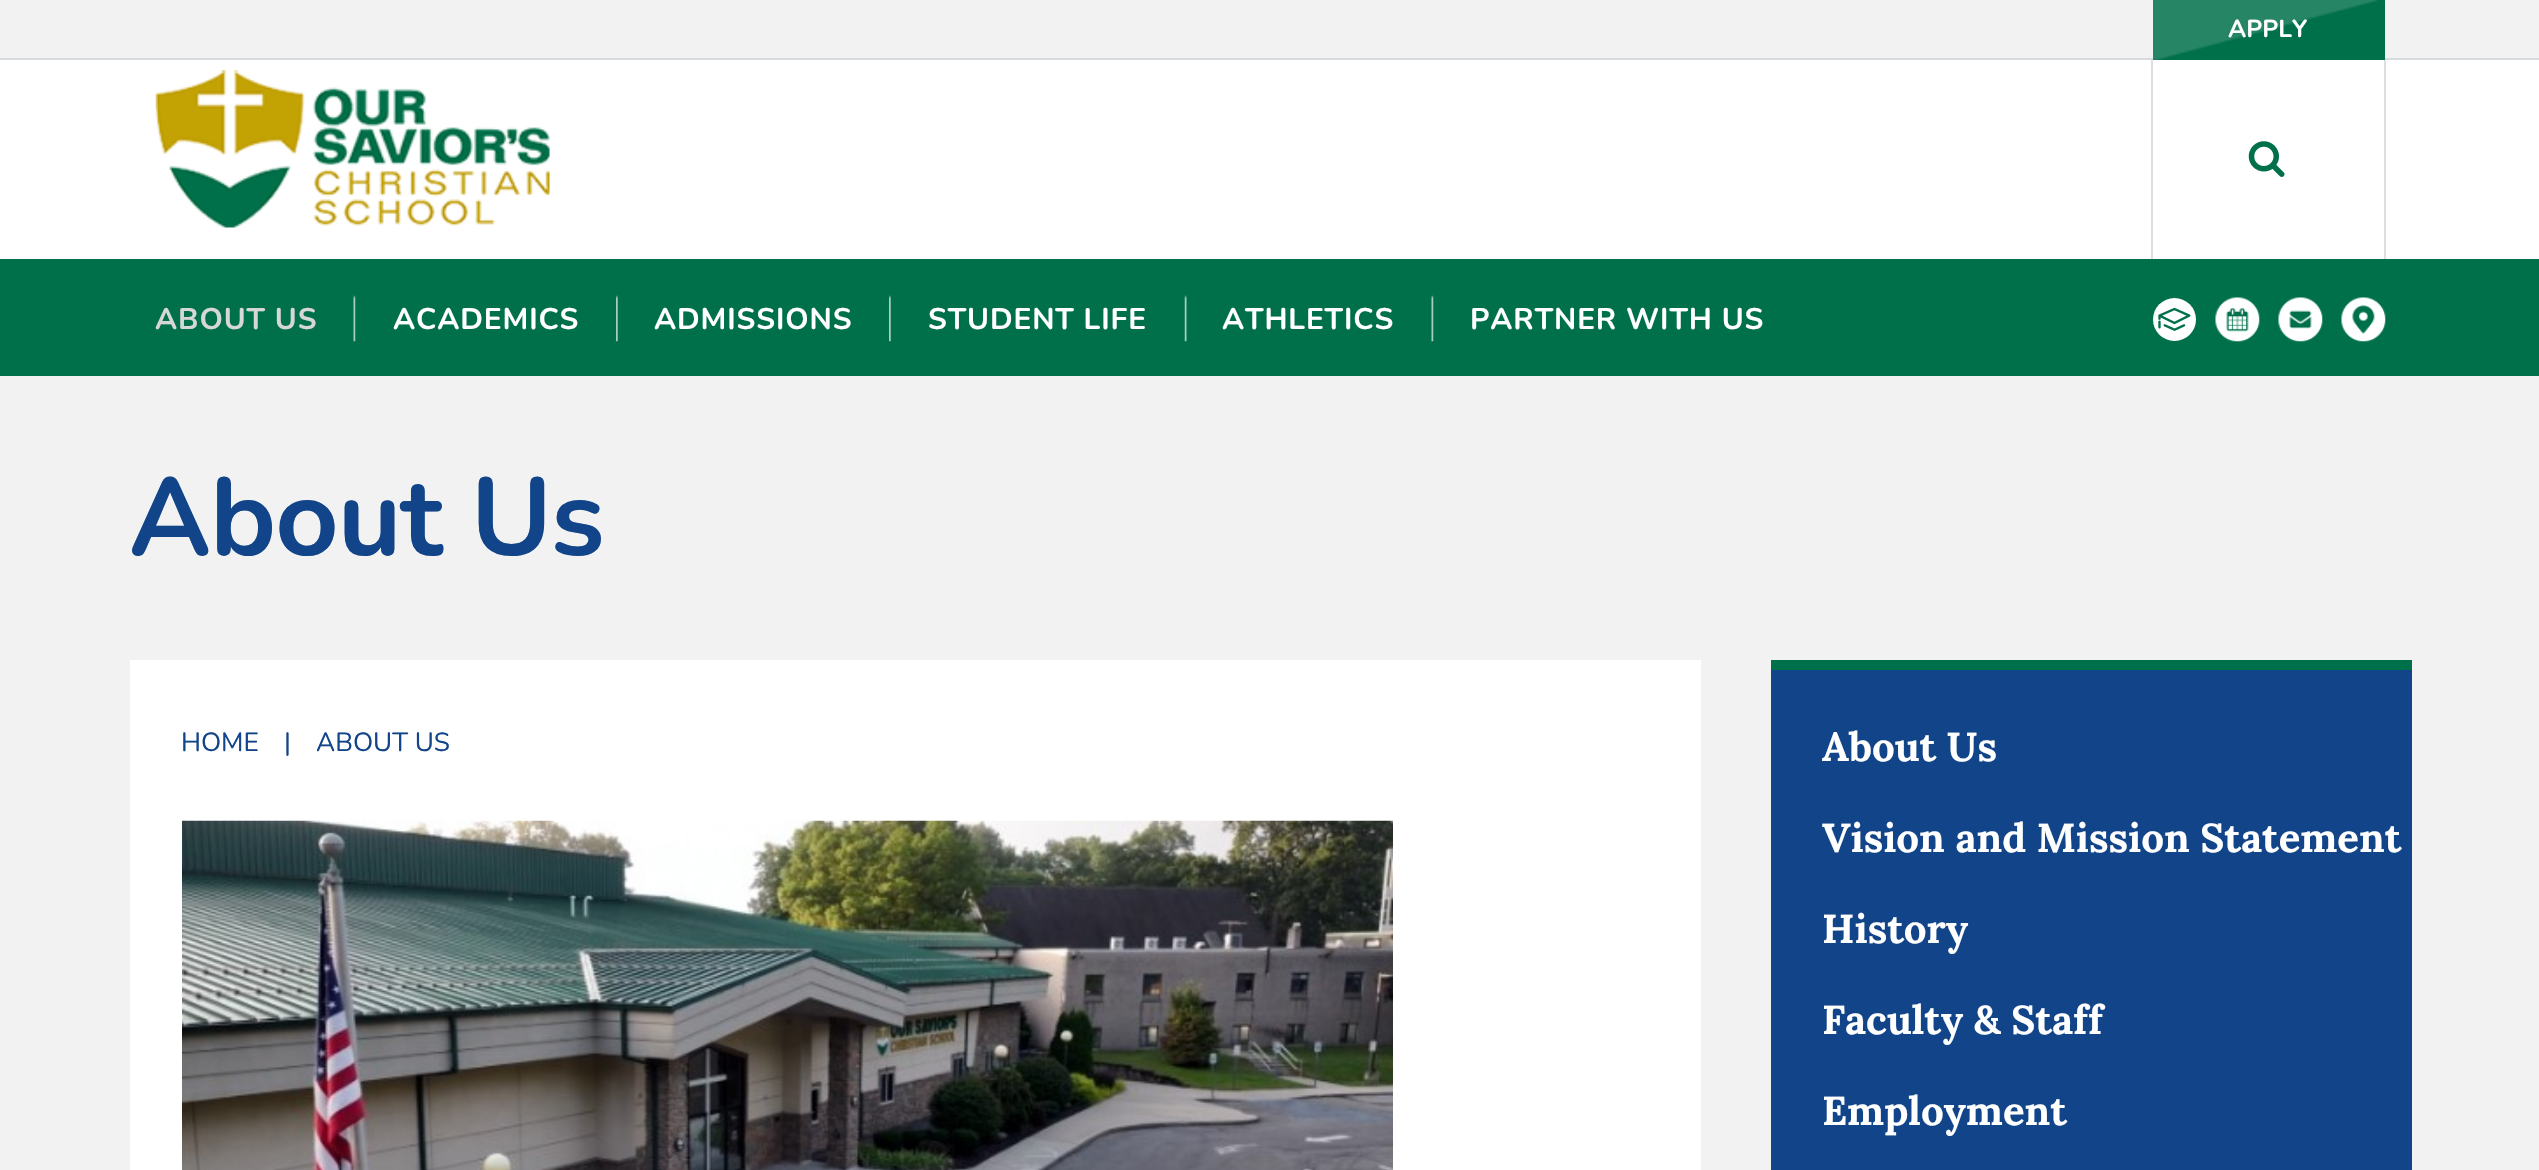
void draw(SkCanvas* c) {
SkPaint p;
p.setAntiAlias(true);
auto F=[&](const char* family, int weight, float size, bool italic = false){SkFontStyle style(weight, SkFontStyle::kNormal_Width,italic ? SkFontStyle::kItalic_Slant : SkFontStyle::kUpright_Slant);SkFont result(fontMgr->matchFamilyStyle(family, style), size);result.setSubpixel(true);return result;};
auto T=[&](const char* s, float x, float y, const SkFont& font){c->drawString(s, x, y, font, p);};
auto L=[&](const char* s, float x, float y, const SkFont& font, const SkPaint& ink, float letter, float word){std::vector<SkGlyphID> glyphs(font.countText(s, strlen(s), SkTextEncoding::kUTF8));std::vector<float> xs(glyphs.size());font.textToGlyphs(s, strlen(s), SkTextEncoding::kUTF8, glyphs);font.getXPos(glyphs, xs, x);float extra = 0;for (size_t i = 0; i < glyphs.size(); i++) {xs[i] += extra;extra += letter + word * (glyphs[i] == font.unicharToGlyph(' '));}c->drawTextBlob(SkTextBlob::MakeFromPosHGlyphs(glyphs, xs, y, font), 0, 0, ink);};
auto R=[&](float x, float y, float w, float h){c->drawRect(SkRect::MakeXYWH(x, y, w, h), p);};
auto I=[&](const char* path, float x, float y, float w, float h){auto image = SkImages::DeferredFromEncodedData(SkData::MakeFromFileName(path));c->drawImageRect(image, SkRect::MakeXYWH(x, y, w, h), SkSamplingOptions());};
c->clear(0xfff2f2f2);
p.setColor(0xffffffff);
R(0,60,2539,199);
p.setColor(0xffd7dbe0);
R(0,58,2539,2);
p.setColor(0xff00704a);
R(2153,0,232,60);
I("1.png",2153,0,225,60);
auto f1 = F("Nunito",700,24.5);
p.setColor(0xffffffff);
T("APPLY",2228,37,f1);
I("2.png",155,70,395,158);
p.setColor(0xffdbdfe4);
R(2384,60,2,199);
R(2151,60,2,199);
I("3.png",2248,141,37,36);
p.setColor(0xff00704a);
R(0,259,2539,117);
I("4.png",353,295,3,47);
auto f2 = F("Nunito",700,29.75);
p.setColor(0xffd7d7d7);
L("ABOUT US",155,329,f2,p,.9,0);
I("5.png",616,295,2,47);
p.setColor(0xffffffff);
L("ACADEMICS",393,329,f2,p,.9,0);
I("5.png",889,295,2,47);
L("ADMISSIONS",654,329,f2,p,.9,0);
I("6.png",1184,295,3,47);
L("STUDENT LIFE",928,329,f2,p,.9,0);
I("4.png",1431,295,3,47);
L("ATHLETICS",1222,329,f2,p,.9,0);
L("PARTNER WITH US",1470,329,f2,p,.9,0);
c->drawCircle(2174.5,319.5,21.5,p);
I("7.png",2158,307,33,24);
I("8.png",2215,297,45,45);
I("9.png",2278,297,45,45);
I("10.png",2341,297,45,45);
auto f3 = F("Nunito",700,110.25);
p.setColor(0xff114488);
L("About Us",129,555,f3,p,-1,0);
p.setColor(0xffffffff);
R(130,660,1571,510);
auto f4 = F("Nunito",400,26.25);
p.setColor(0xff114488);
T("HOME",181,751,f4);
T("|",284,751,f4);
T("ABOUT US",316,751,f4);
I("11.png",182,820,1211,350);
R(1771,670,641,500);
p.setColor(0xff00704a);
R(1771,660,641,10);
auto f5 = F("Lora",700,40.25);
p.setColor(0xffffffff);
T("About Us",1822,761,f5);
T("Vision and Mission Statement",1822,852,f5);
T("History",1822,943,f5);
T("Faculty & Staff",1822,1034,f5);
T("Employment",1822,1125,f5);
}
